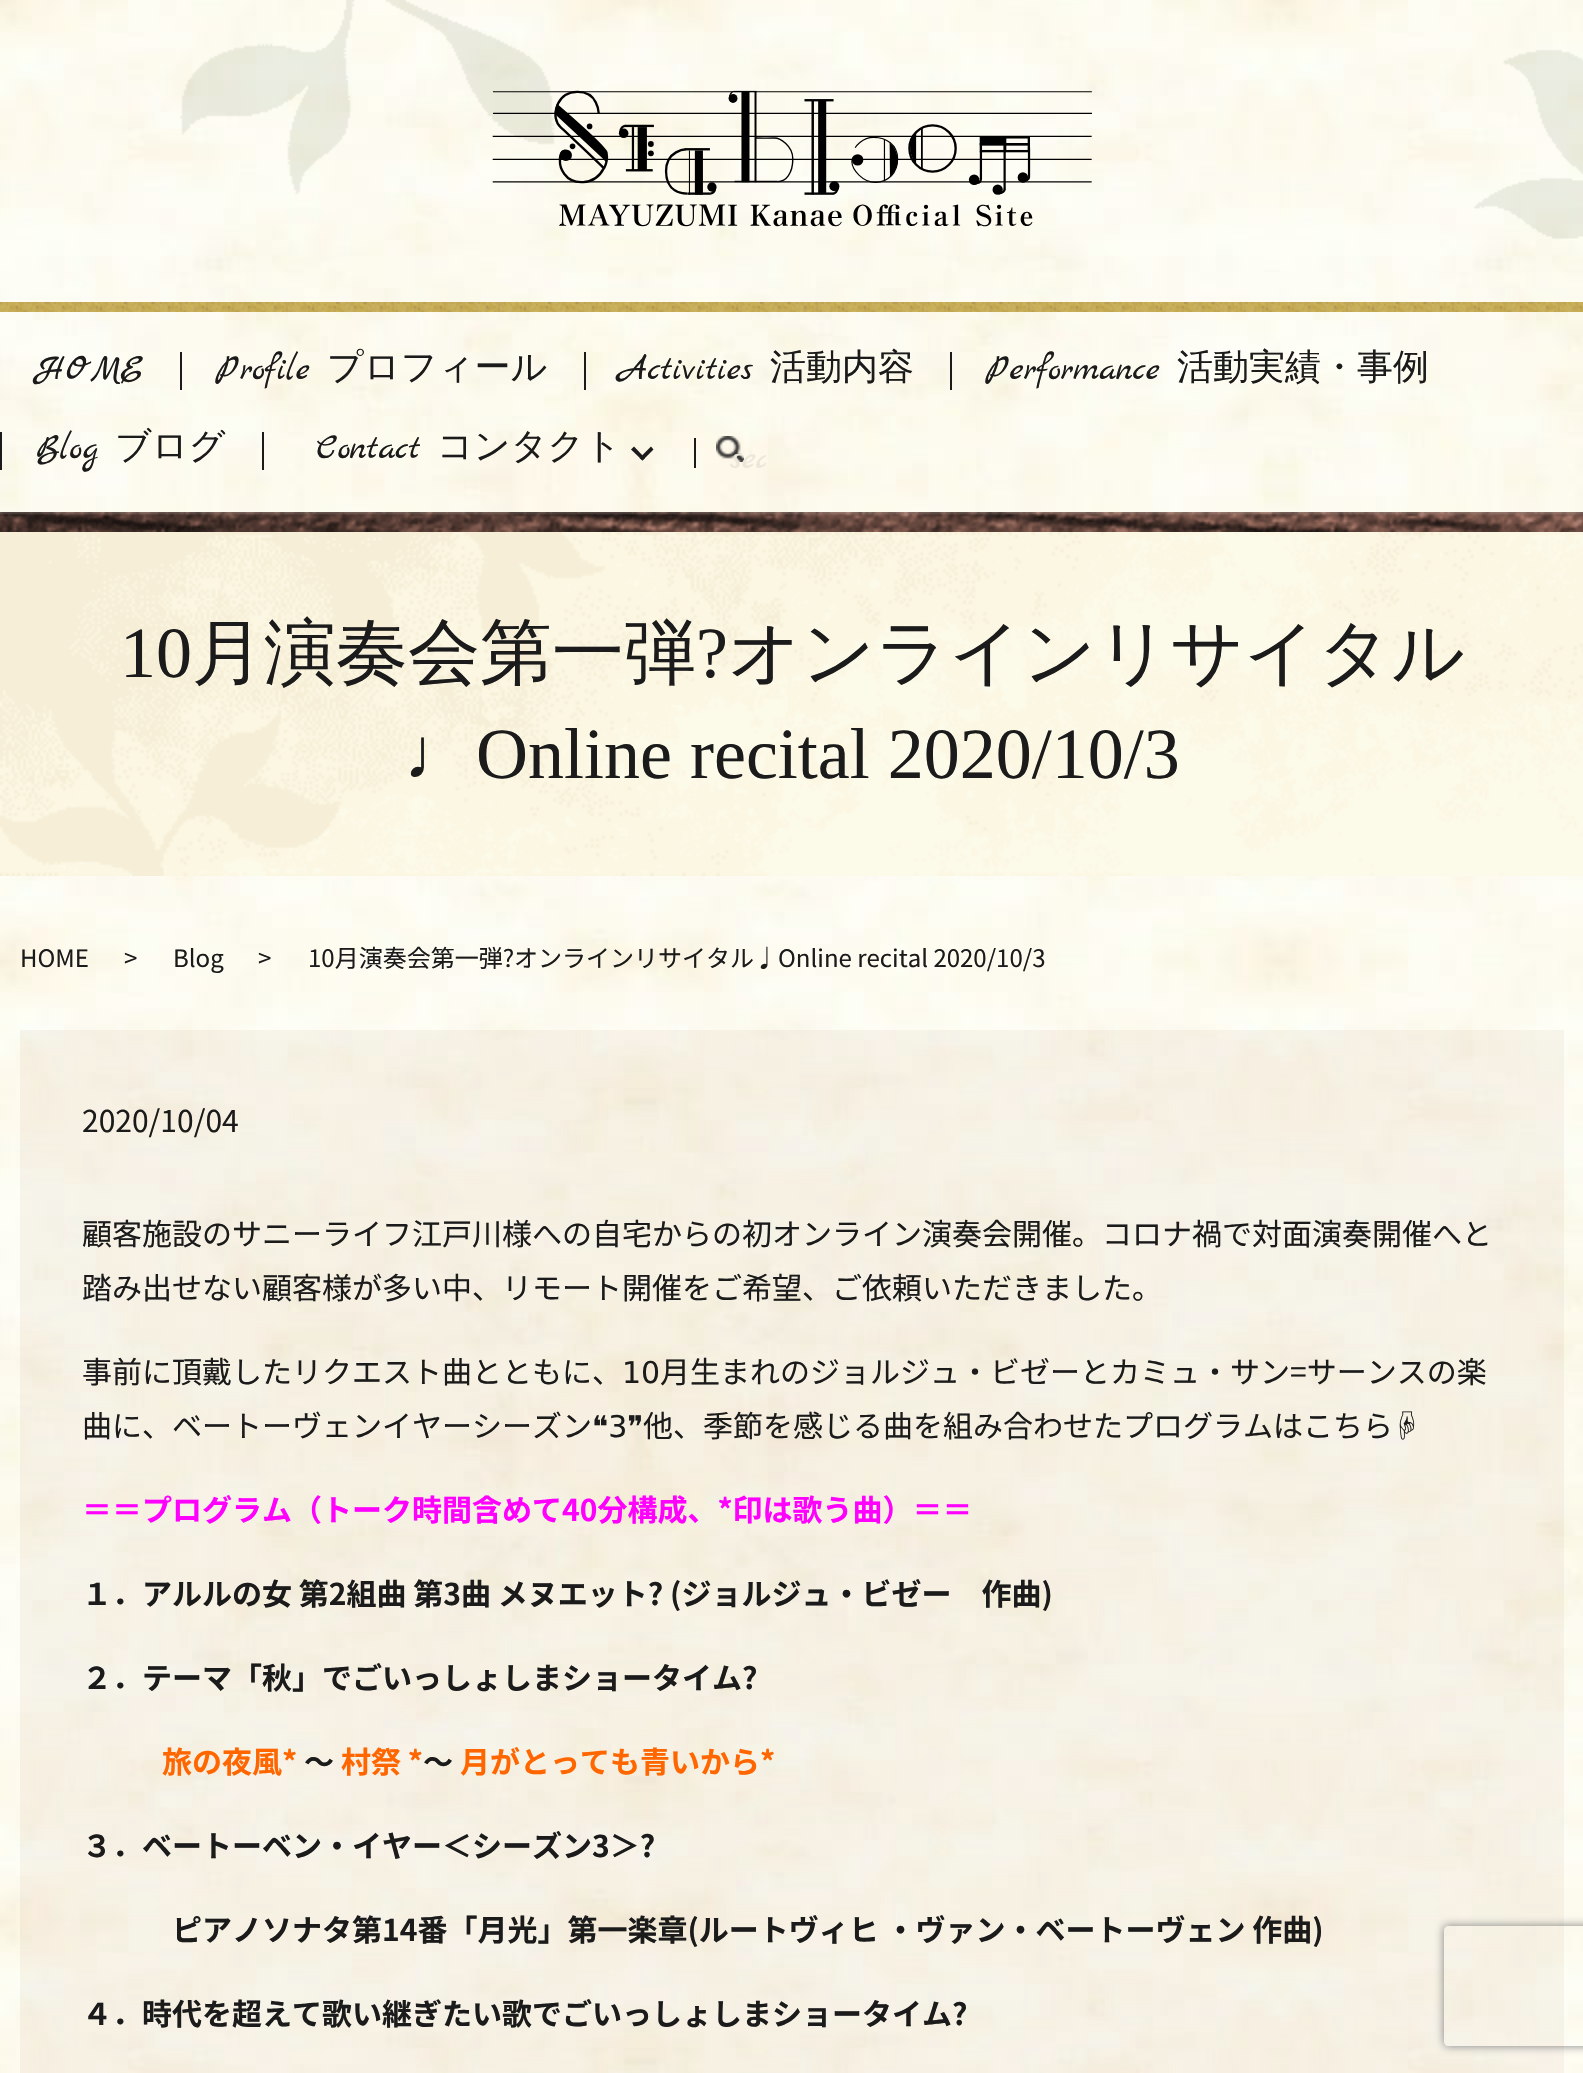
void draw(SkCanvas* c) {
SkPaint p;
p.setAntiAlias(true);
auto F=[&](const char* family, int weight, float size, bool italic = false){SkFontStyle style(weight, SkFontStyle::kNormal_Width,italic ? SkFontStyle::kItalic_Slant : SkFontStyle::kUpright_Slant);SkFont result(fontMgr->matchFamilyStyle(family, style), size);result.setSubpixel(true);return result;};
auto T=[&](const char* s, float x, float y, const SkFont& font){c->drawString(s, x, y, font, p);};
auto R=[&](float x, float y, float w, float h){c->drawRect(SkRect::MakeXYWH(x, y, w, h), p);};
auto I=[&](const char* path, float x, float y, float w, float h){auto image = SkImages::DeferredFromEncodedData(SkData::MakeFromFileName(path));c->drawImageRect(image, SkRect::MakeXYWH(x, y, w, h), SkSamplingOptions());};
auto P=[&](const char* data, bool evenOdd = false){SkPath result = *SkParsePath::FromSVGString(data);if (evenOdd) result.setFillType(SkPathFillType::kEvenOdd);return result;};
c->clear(0xffffffff);
I("1.png",0,0,1583,2073);
I("2.png",180,0,1403,239);
I("3.png",492,90,600,137);
I("4.png",0,302,1583,10);
auto f1 = F("Marck Script",400,36);
p.setColor(0xff1b1b1b);
T("HOME",36,379,f1);
R(180,352,2,38);
T("Profile",216,379,f1);
auto f2 = F("WenQuanYi Zen Hei",500,36);
T("プロフィール",327,379,f2);
R(584,352,2,38);
T("Activities",619,379,f1);
T("活動内容",770,379,f2);
R(950,352,2,38);
T("Performance",986,379,f1);
T("活動実績・事例",1177,379,f2);
R(0,432,2,38);
T("Blog",36,458,f1);
T("ブログ",115,458,f2);
R(262,432,2,38);
T("Contact",316,458,f1);
T("コンタクト",437,458,f2);
c->drawPath(P("M653.5 449.5l-11 11l-3-2.5l11.5-11.5z"),p);
c->drawPath(P("M645 458l-2.5 2.5l-11.5-11l3-3z"),p);
I("5.png",716,436,28,26);
R(694,438,2,30);
c->save();
c->clipRect(SkRect::MakeXYWH(694,422,72,56));
p.setColor(0xffece7da);
T("sea",730,468,f1);
c->restore();
I("6.png",0,512,1583,20);
I("7.png",0,532,1583,344);
auto f3 = F("Liberation Serif",400,72);
p.setColor(0xff1b1b1b);
T("10",120,677,f3);
auto f4 = F("WenQuanYi Zen Hei",500,72);
T("月演奏会第一弾",192,677,f4);
T("?",696,677,f3);
T("オンラインリサイタル",728,677,f4);
T("♩Online recital 2020/10/3",404,778,f3);
auto f5 = F("Noto Sans JP",400,24);
T("HOME",20,967,f5);
T(">",124,967,f5);
T("Blog",173,967,f5);
T(">",258,967,f5);
T("10月演奏会第一弾?オンラインリサイタル♩Online recital 2020/10/3",308,967,f5);
p.setColor(0x0d6d3b11);
R(20,1030,1544,1043);
auto f6 = F("Noto Sans JP",400,30);
p.setColor(0xff1b1b1b);
T("2020/10/04",82,1132,f6);
T("顧客施設のサニーライフ江戸川様への自宅からの初オンライン演奏会開催。コロナ禍で対面演奏開催へと",82,1245,f6);
T("踏み出せない顧客様が多い中、リモート開催をご希望、ご依頼いただきました。",82,1299,f6);
T("事前に頂戴したリクエスト曲とともに、",82,1383,f6);
auto f7 = F("DejaVu Sans",400,30);
T("10",622,1383,f7);
T("月生まれのジョルジュ・ビゼーとカミュ・サン=サーンスの楽",660,1383,f6);
T("曲に、ベートーヴェンイヤーシーズン",82,1437,f6);
T("❝3❞",592,1437,f7);
T("他、季節を感じる曲を組み合わせたプログラムはこちら",643,1437,f6);
T("☟",1391,1437,f6);
auto f8 = F("Noto Sans JP",700,30);
p.setColor(0xffff00ff);
T("＝＝プログラム（トーク時間含めて40分構成、*印は歌う曲）＝＝",82,1521,f8);
p.setColor(0xff1b1b1b);
T("１．アルルの女 第2組曲 第3曲 メヌエット? (ジョルジュ・ビゼー　作曲)",82,1605,f8);
T("２．テーマ「秋」でごいっしょしまショータイム?",82,1689,f8);
p.setColor(0xffff6600);
T("旅の夜風*",162,1773,f8);
p.setColor(0xff1b1b1b);
T("～",304,1773,f8);
p.setColor(0xffff6600);
T("村祭 *",341,1773,f8);
p.setColor(0xff1b1b1b);
T("～",423,1773,f8);
p.setColor(0xffff6600);
T("月がとっても青いから*",460,1773,f8);
p.setColor(0xff1b1b1b);
T("３．ベートーベン・イヤー＜シーズン3＞?",82,1857,f8);
T("ピアノソナタ第14番「月光」第一楽章(ルートヴィヒ ・ヴァン・ベートーヴェン 作曲)",172,1941,f8);
T("４．時代を超えて歌い継ぎたい歌でごいっしょしまショータイム?",82,2025,f8);
c->save();
c->clipPath(P("M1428 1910h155v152h-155zm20 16h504c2 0 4 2 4 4v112c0 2-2 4-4 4h-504c-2 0-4-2-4-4v-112c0-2 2-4 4-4z",true),true);
p.setColor(0xff808080);
p.setMaskFilter(SkMaskFilter::MakeBlur(kNormal_SkBlurStyle, 5));
c->drawRoundRect(SkRect::MakeXYWH(1444,1926,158,120),4,4,p);
p.setMaskFilter(nullptr);
c->restore();
}
